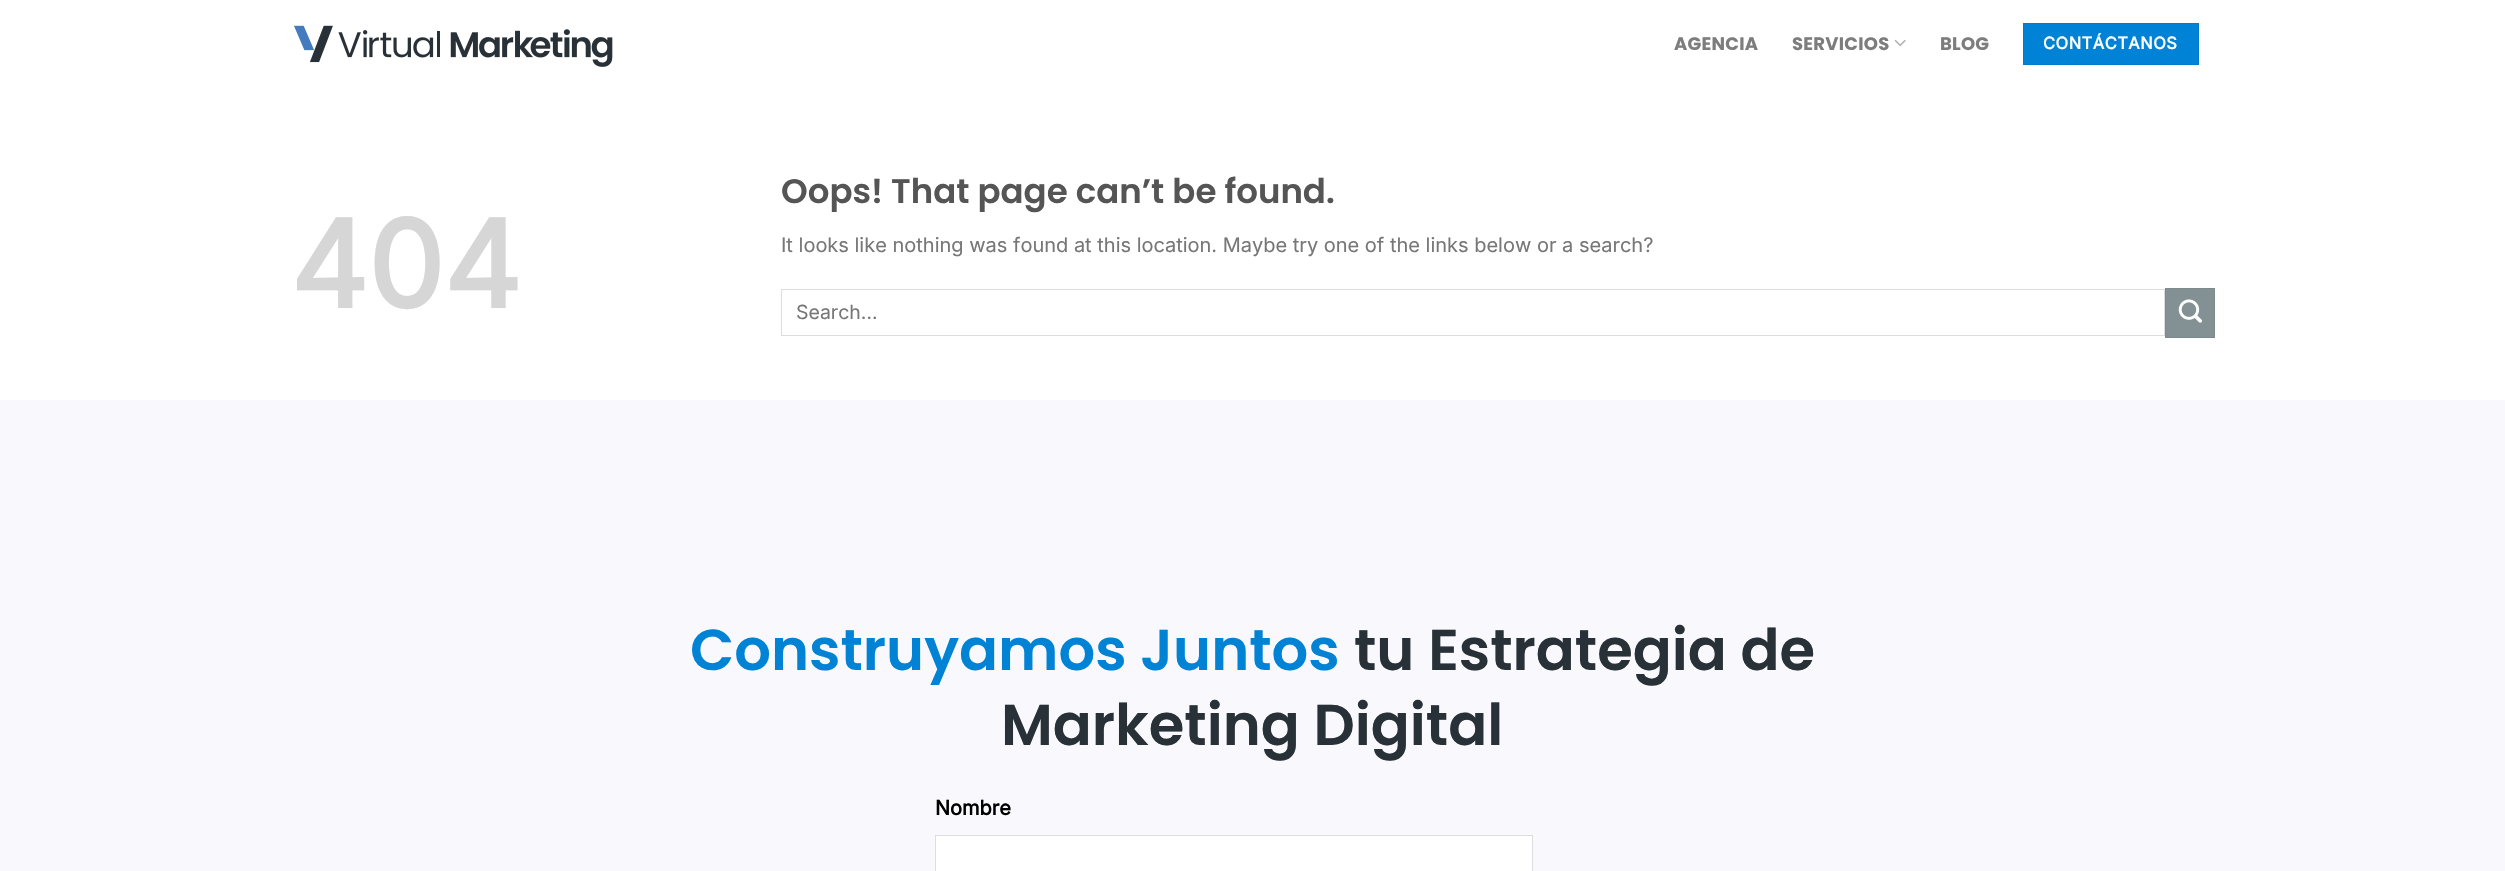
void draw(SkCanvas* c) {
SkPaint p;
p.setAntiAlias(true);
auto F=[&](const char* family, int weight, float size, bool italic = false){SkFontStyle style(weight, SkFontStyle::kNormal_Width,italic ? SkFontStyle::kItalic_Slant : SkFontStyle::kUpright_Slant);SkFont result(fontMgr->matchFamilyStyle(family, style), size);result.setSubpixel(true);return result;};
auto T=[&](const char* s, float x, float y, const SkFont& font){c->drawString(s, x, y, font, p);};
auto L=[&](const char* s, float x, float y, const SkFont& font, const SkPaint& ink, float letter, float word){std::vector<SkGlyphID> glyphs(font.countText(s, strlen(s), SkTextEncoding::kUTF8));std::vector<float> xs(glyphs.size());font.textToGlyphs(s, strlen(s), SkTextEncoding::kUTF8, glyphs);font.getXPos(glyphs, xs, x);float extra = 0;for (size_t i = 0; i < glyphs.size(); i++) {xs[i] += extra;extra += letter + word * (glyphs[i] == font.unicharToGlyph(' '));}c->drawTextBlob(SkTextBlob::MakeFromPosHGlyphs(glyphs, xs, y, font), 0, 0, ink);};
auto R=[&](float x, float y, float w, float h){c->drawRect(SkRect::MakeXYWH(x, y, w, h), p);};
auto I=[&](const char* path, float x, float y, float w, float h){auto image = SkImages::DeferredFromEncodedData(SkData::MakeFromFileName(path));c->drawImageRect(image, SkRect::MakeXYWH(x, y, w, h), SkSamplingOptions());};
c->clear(0xffffffff);
I("1.png",294,25,319,42);
auto f1 = F("Poppins",700,18);
p.setColor(0xff7d7d7d);
L("AGENCIA",1674,50,f1,p,.25,0);
L("SERVICIOS",1792,50,f1,p,.25,0);
I("2.png",1894,39,12,8);
L("BLOG",1940,50,f1,p,.25,0);
p.setColor(0xff0082d6);
c->drawRect(SkRect::MakeXYWH(2023.5,23.5,175,41),p);
p.setStroke(true);
p.setStrokeWidth(1);
p.setColor(0xff007ccb);
c->drawRect(SkRect::MakeXYWH(2023.5,23.5,175,41),p);
auto f2 = F("Inter",700,16.5);
p.setStroke(false);
p.setColor(0xffffffff);
L("CONTÁCTANOS",2043,49,f2,p,.5,0);
auto f3 = F("Inter",700,120);
p.setColor(0xffd6d6d6);
T("404",290,308,f3);
auto f4 = F("Poppins",600,34);
p.setColor(0xff555555);
T("Oops! That page can’t be found.",781,203,f4);
auto f5 = F("Inter",400,20);
p.setColor(0xff777777);
T("It looks like nothing was found at this location. Maybe try one of the links below or a search?",781,252,f5);
p.setStroke(true);
p.setColor(0xffdddddd);
c->drawRect(SkRect::MakeXYWH(781.5,289.5,1383,46),p);
auto f6 = F("Inter",400,19.5);
p.setStroke(false);
p.setColor(0xff777777);
T("Search…",796,319,f6);
p.setColor(0xff839094);
c->drawRect(SkRect::MakeXYWH(2165.5,288.5,49,49),p);
p.setStroke(true);
p.setColor(0xff7c898d);
c->drawRect(SkRect::MakeXYWH(2165.5,288.5,49,49),p);
I("3.png",2178,299,24,24);
p.setStroke(false);
p.setColor(0xfff9f8fc);
R(0,400,2505,471);
auto f7 = F("Poppins",600,57.6);
p.setColor(0xff0082d5);
T("Construyamos Juntos",690,670,f7);
p.setColor(0xff273137);
T("tu Estrategia de",1354,670,f7);
T("Marketing Digital",1001,745,f7);
auto f8 = F("Inter",700,20);
p.setColor(0xff000000);
T("Nombre",935,815,f8);
p.setColor(0xffffffff);
c->drawRect(SkRect::MakeXYWH(935.5,835.5,597,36),p);
p.setStroke(true);
p.setColor(0xffdddddd);
c->drawRect(SkRect::MakeXYWH(935.5,835.5,597,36),p);
}
